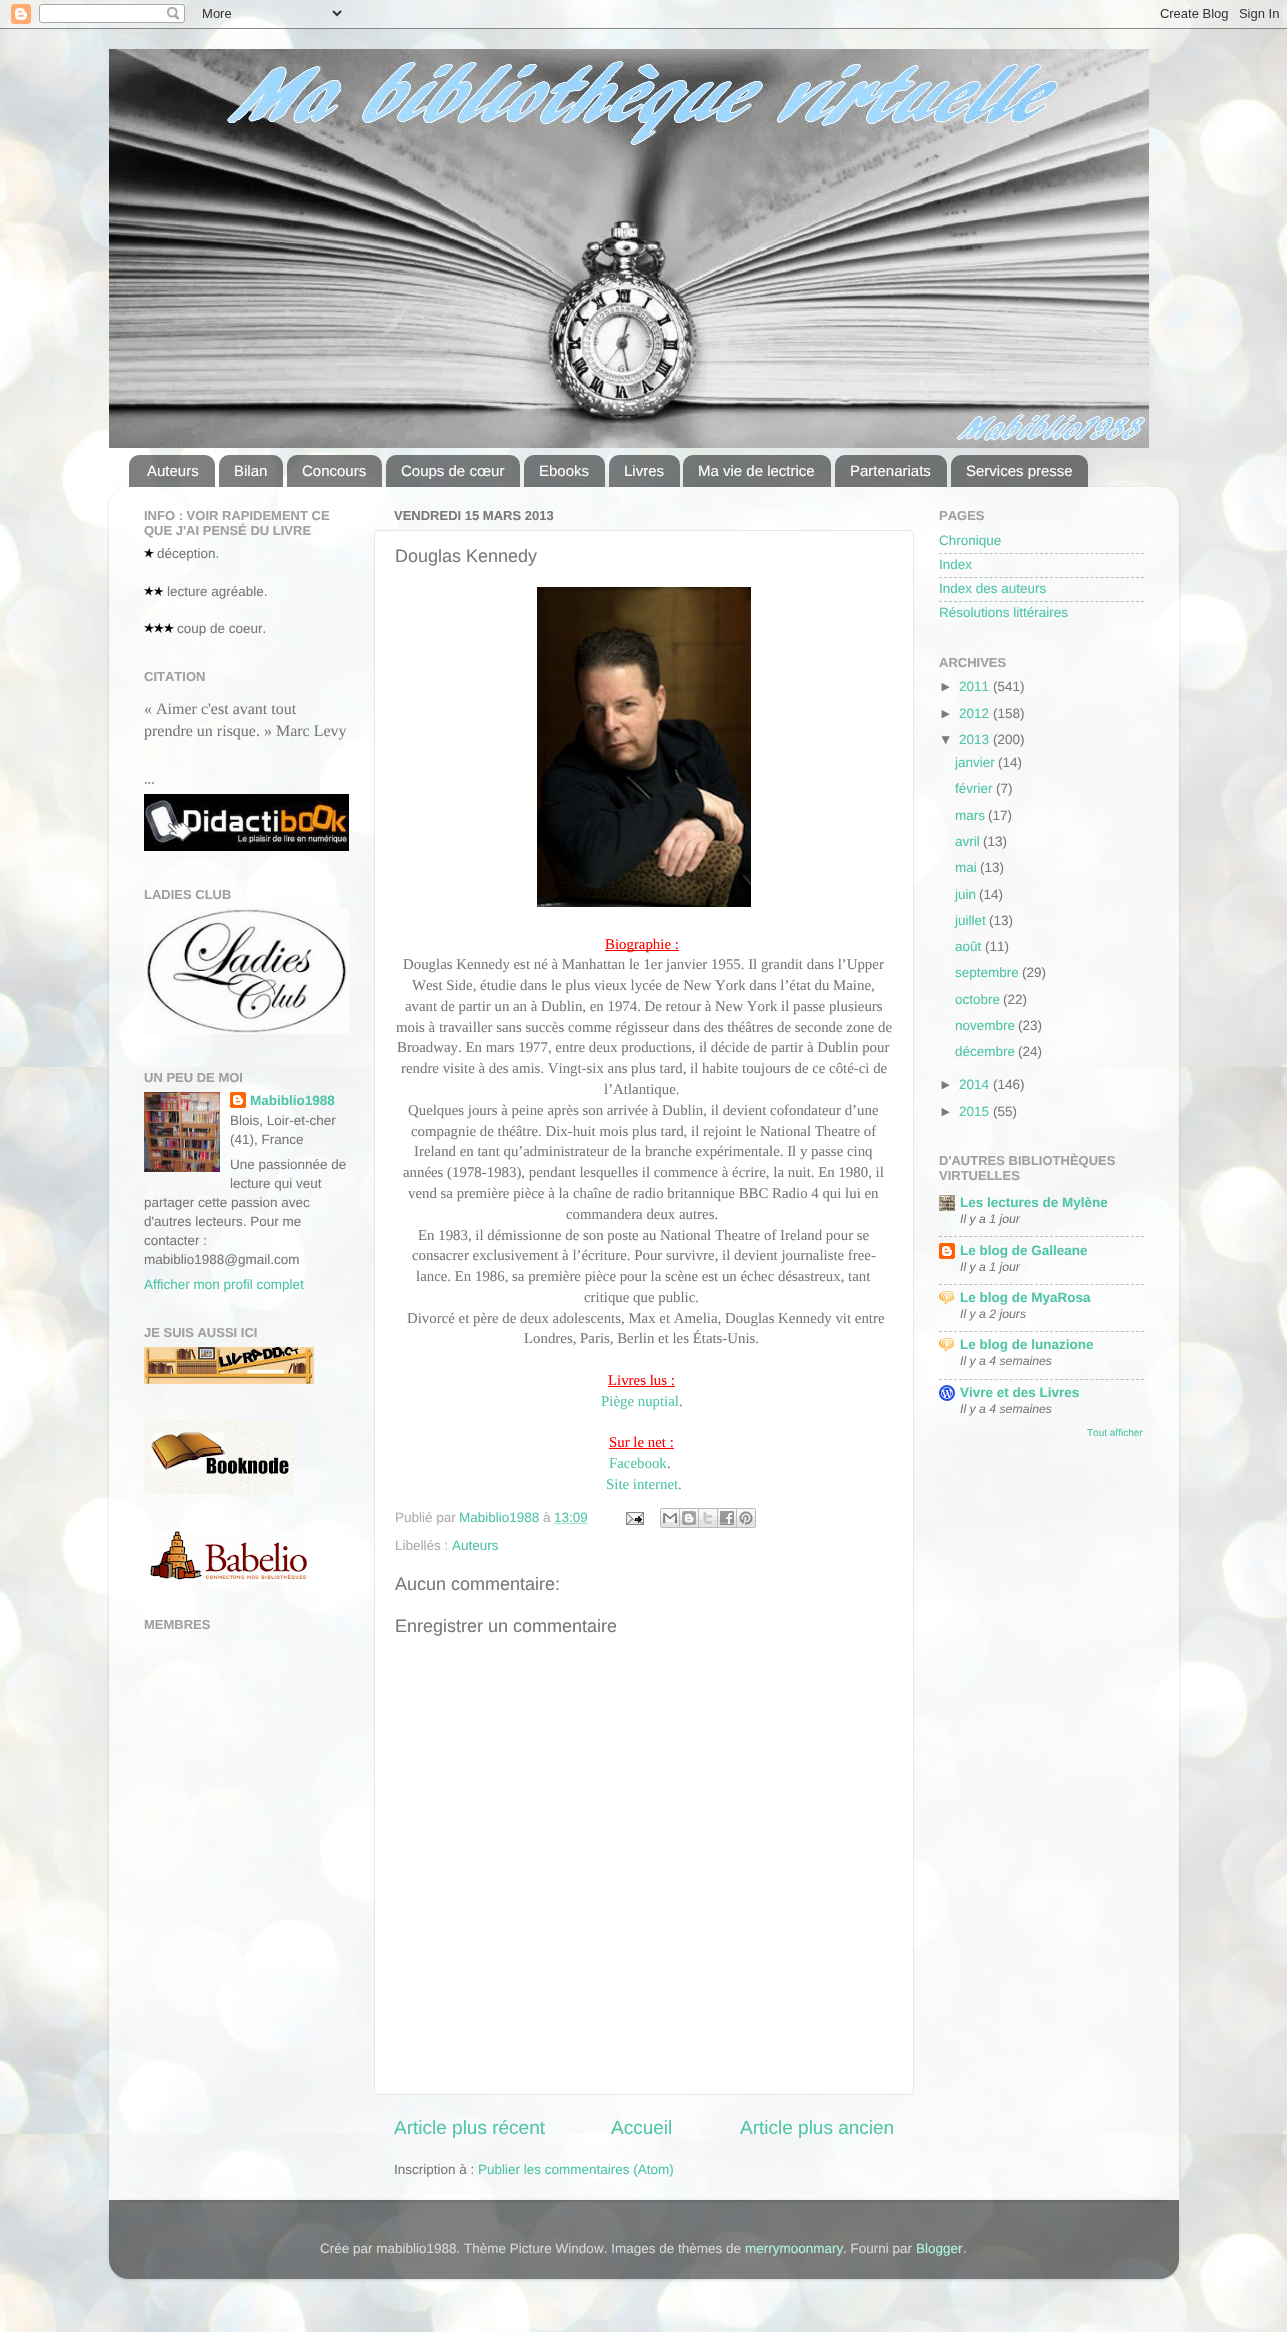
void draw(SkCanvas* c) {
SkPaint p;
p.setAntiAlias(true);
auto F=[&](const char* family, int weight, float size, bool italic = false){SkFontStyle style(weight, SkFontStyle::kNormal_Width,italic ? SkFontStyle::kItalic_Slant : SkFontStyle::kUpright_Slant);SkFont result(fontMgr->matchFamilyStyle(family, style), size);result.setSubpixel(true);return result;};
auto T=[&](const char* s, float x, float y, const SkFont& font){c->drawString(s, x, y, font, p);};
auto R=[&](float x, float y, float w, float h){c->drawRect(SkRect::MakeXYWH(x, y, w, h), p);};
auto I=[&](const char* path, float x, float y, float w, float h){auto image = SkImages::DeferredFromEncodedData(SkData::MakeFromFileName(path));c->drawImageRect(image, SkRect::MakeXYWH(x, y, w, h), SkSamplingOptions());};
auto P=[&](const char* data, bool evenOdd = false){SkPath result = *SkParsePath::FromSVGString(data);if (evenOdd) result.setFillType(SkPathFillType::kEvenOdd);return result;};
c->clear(0xffffffff);
I("1.png",0,0,1287,2332);
I("2.png",0,0,1287,29);
I("3.png",109,49,1040,399);
I("4.png",129,455,86,32);
auto f1 = F("Liberation Sans",400,15);
p.setColor(0xffffffff);
T("Auteurs",147,476,f1);
I("5.png",219,455,64,32);
T("Bilan",234,476,f1);
I("6.png",287,455,95,32);
T("Concours",302,476,f1);
I("7.png",386,455,134,32);
T("Coups de cœur",401,476,f1);
I("8.png",524,455,81,32);
T("Ebooks",539,476,f1);
I("9.png",609,455,71,32);
T("Livres",624,476,f1);
I("10.png",683,455,148,32);
T("Ma vie de lectrice",698,476,f1);
I("11.png",835,455,112,32);
T("Partenariats",850,476,f1);
I("12.png",951,455,137,32);
T("Services presse",966,476,f1);
c->save();
c->clipPath(P("M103 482h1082v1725h-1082zm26 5h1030c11 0 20 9 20 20v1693h-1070v-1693c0-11 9-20 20-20z",true),true);
p.setColor(0x26000000);
p.setMaskFilter(SkMaskFilter::MakeBlur(kNormal_SkBlurStyle, 1.5));
c->drawRoundRect(SkRect::MakeXYWH(109,488,1070,1713),20,20,p);
p.setMaskFilter(nullptr);
c->restore();
I("13.png",109,487,1070,1713);
auto f2 = F("Liberation Sans",700,13);
p.setColor(0xffa0a0a0);
T("INFO : VOIR RAPIDEMENT CE",144,520,f2);
T("QUE J'AI PENSÉ DU LIVRE",144,535,f2);
I("14.png",144,548,10,10);
auto f3 = F("Liberation Sans",400,13.5);
p.setColor(0xff797979);
T("déception.",157,558,f3);
I("15.png",144,586,20,10);
T("lecture agréable.",167,596,f3);
I("16.png",144,623,30,10);
T("coup de coeur.",177,633,f3);
p.setColor(0xffa0a0a0);
T("CITATION",144,681,f2);
auto f4 = F("Liberation Serif",400,16);
p.setColor(0xff797979);
T("« Aimer c'est avant tout",144,714,f4);
T("prendre un risque. » Marc Levy",144,736,f4);
p.setColor(0xffa0a0a0);
T("...",144,784,f2);
I("17.png",144,794,205,57);
T("LADIES CLUB",144,899,f2);
I("18.png",144,908,205,126);
T("UN PEU DE MOI",144,1082,f2);
I("19.png",144,1092,76,80);
I("20.png",230,1092,16,16);
auto f5 = F("Liberation Sans",700,13.5);
p.setColor(0xff51c5a8);
T("Mabiblio1988",250,1105,f5);
p.setColor(0xff797979);
T("Blois, Loir-et-cher",230,1125,f3);
T("(41), France",230,1144,f3);
T("Une passionnée de",230,1169,f3);
T("lecture qui veut",230,1188,f3);
T("partager cette passion avec",144,1207,f3);
T("d'autres lecteurs. Pour me",144,1226,f3);
T("contacter :",144,1245,f3);
T("mabiblio1988@gmail.com",144,1264,f3);
p.setColor(0xff51c5a8);
T("Afficher mon profil complet",144,1289,f3);
p.setColor(0xffa0a0a0);
T("JE SUIS AUSSI ICI",144,1337,f2);
I("21.png",144,1347,170,37);
I("22.png",144,1420,150,74);
I("23.png",150,1530,157,52);
T("MEMBRES",144,1629,f2);
p.setColor(0xff797979);
T("VENDREDI 15 MARS 2013",394,520,f2);
p.setColor(0xffffffff);
c->drawRoundRect(SkRect::MakeXYWH(374.5,530.5,539,1564),4.5,4.5,p);
p.setStroke(true);
p.setStrokeWidth(1);
p.setColor(0xffe7e7e7);
c->drawRoundRect(SkRect::MakeXYWH(374.5,530.5,539,1564),4.5,4.5,p);
auto f6 = F("Liberation Sans",400,18);
p.setStroke(false);
p.setColor(0xff797979);
T("Douglas Kennedy",395,562,f6);
I("24.png",537,587,214,320);
p.setColor(0xffff0000);
R(605,950,74,1);
auto f7 = F("Liberation Serif",400,14.85);
T("Biographie :",605,949,f7);
p.setColor(0xff797979);
T("Douglas Kennedy est né à Manhattan le 1er janvier 1955. Il grandit dans l’Upper",403,969,f7);
T("West Side, étudie dans le plus vieux lycée de New York dans l’état du Maine,",412,990,f7);
T("avant de partir un an à Dublin, en 1974. De retour à New York il passe plusieurs",405,1011,f7);
T("mois à travailler sans succès comme régisseur dans des théâtres de seconde zone de",396,1032,f7);
T("Broadway. En mars 1977, entre deux productions, il décide de partir à Dublin pour",397,1052,f7);
T("rendre visite à des amis. Vingt-six ans plus tard, il habite toujours de ce côté-ci de",401,1073,f7);
T("l’Atlantique.",604,1094,f7);
T("Quelques jours à peine après son arrivée à Dublin, il devient cofondateur d’une",408,1115,f7);
T("compagnie de théâtre. Dix-huit mois plus tard, il rejoint le National Theatre of",411,1136,f7);
T("Ireland en tant qu’administrateur de la branche expérimentale. Il y passe cinq",414,1156,f7);
T("années (1978-1983), pendant lesquelles il commence à écrire, la nuit. En 1980, il",403,1177,f7);
T("vend sa première pièce à la chaîne de radio britannique BBC Radio 4 qui lui en",408,1198,f7);
T("commandera deux autres.",566,1219,f7);
T("En 1983, il démissionne de son poste au National Theatre of Ireland pour se",418,1240,f7);
T("consacrer exclusivement à l’écriture. Pour survivre, il devient journaliste free-",412,1260,f7);
T("lance. En 1986, sa première pièce pour la scène est un échec désastreux, tant",416,1281,f7);
T("critique que public.",584,1302,f7);
T("Divorcé et père de deux adolescents, Max et Amelia, Douglas Kennedy vit entre",407,1323,f7);
T("Londres, Paris, Berlin et les États-Unis.",524,1343,f7);
p.setColor(0xffff0000);
T("Livres lus :",608,1385,f7);
R(608,1386,67,1);
p.setColor(0xff51c5a8);
T("Piège nuptial",601,1406,f7);
p.setColor(0xff797979);
T(".",679,1406,f7);
p.setColor(0xffff0000);
T("Sur le net :",609,1447,f7);
R(609,1448,65,1);
p.setColor(0xff51c5a8);
T("Facebook",609,1468,f7);
p.setColor(0xff797979);
T(".",667,1468,f7);
p.setColor(0xff51c5a8);
T("Site internet",606,1489,f7);
p.setColor(0xff797979);
T(".",678,1489,f7);
p.setColor(0xffadadad);
T("Publié par",395,1522,f3);
p.setColor(0xff51c5a8);
T("Mabiblio1988",459,1522,f3);
p.setColor(0xffadadad);
T("à",543,1522,f3);
p.setColor(0xff51c5a8);
T("13:09",554,1522,f3);
p.setStroke(true);
p.setPathEffect(SkDashPathEffect::Make({{1,1}}, 0));
c->drawPath(P("M554.5 1523.5h33.5"),p);
p.setPathEffect(nullptr);
I("25.png",626,1512,18,13);
I("26.png",660,1508,20,20);
I("27.png",680,1508,19,20);
I("28.png",699,1508,19,20);
I("29.png",718,1508,19,20);
I("30.png",737,1508,19,20);
p.setStroke(false);
p.setColor(0xffadadad);
T("Libellés :",395,1550,f3);
p.setColor(0xff51c5a8);
T("Auteurs",452,1550,f3);
p.setColor(0xff797979);
T("Aucun commentaire:",395,1590,f6);
T("Enregistrer un commentaire",395,1632,f6);
auto f8 = F("Liberation Sans",400,19);
p.setColor(0xff51c5a8);
T("Article plus récent",394,2134,f8);
T("Accueil",611,2134,f8);
T("Article plus ancien",740,2134,f8);
p.setColor(0xff797979);
T("Inscription à :",394,2174,f3);
p.setColor(0xff51c5a8);
T("Publier les commentaires (Atom)",478,2174,f3);
p.setColor(0xffa0a0a0);
T("PAGES",939,520,f2);
p.setColor(0xff51c5a8);
T("Chronique",939,545,f3);
p.setStroke(true);
p.setColor(0x80808080);
p.setPathEffect(SkDashPathEffect::Make({{3,2.05f}}, 0));
c->drawPath(P("M939 553.5h205"),p);
p.setPathEffect(nullptr);
p.setStroke(false);
p.setColor(0xff51c5a8);
T("Index",939,569,f3);
p.setStroke(true);
p.setColor(0x80808080);
p.setPathEffect(SkDashPathEffect::Make({{3,2.05f}}, 0));
c->drawPath(P("M939 577.5h205"),p);
p.setPathEffect(nullptr);
p.setStroke(false);
p.setColor(0xff51c5a8);
T("Index des auteurs",939,593,f3);
p.setStroke(true);
p.setColor(0x80808080);
p.setPathEffect(SkDashPathEffect::Make({{3,2.05f}}, 0));
c->drawPath(P("M939 601.5h205"),p);
p.setPathEffect(nullptr);
p.setStroke(false);
p.setColor(0xff51c5a8);
T("Résolutions littéraires",939,617,f3);
p.setColor(0xffa0a0a0);
T("ARCHIVES",939,667,f2);
p.setColor(0xff797979);
T("►",939,691,f3);
p.setColor(0xff51c5a8);
T("2011",959,691,f3);
p.setColor(0xff797979);
T("(541)",993,691,f3);
T("►",939,718,f3);
p.setColor(0xff51c5a8);
T("2012",959,718,f3);
p.setColor(0xff797979);
T("(158)",993,718,f3);
T("▼",939,744,f3);
p.setColor(0xff51c5a8);
T("2013",959,744,f3);
p.setColor(0xff797979);
T("(200)",993,744,f3);
p.setColor(0xff51c5a8);
T("janvier",955,767,f3);
p.setColor(0xff797979);
T("(14)",998,767,f3);
p.setColor(0xff51c5a8);
T("février",955,793,f3);
p.setColor(0xff797979);
T("(7)",996,793,f3);
p.setColor(0xff51c5a8);
T("mars",955,820,f3);
p.setColor(0xff797979);
T("(17)",988,820,f3);
p.setColor(0xff51c5a8);
T("avril",955,846,f3);
p.setColor(0xff797979);
T("(13)",983,846,f3);
p.setColor(0xff51c5a8);
T("mai",955,872,f3);
p.setColor(0xff797979);
T("(13)",980,872,f3);
p.setColor(0xff51c5a8);
T("juin",955,899,f3);
p.setColor(0xff797979);
T("(14)",979,899,f3);
p.setColor(0xff51c5a8);
T("juillet",955,925,f3);
p.setColor(0xff797979);
T("(13)",989,925,f3);
p.setColor(0xff51c5a8);
T("août",955,951,f3);
p.setColor(0xff797979);
T("(11)",985,951,f3);
p.setColor(0xff51c5a8);
T("septembre",955,977,f3);
p.setColor(0xff797979);
T("(29)",1022,977,f3);
p.setColor(0xff51c5a8);
T("octobre",955,1004,f3);
p.setColor(0xff797979);
T("(22)",1003,1004,f3);
p.setColor(0xff51c5a8);
T("novembre",955,1030,f3);
p.setColor(0xff797979);
T("(23)",1018,1030,f3);
p.setColor(0xff51c5a8);
T("décembre",955,1056,f3);
p.setColor(0xff797979);
T("(24)",1018,1056,f3);
T("►",939,1089,f3);
p.setColor(0xff51c5a8);
T("2014",959,1089,f3);
p.setColor(0xff797979);
T("(146)",993,1089,f3);
T("►",939,1116,f3);
p.setColor(0xff51c5a8);
T("2015",959,1116,f3);
p.setColor(0xff797979);
T("(55)",993,1116,f3);
p.setColor(0xffa0a0a0);
T("D'AUTRES BIBLIOTHÈQUES",939,1165,f2);
T("VIRTUELLES",939,1180,f2);
I("31.png",939,1195,16,16);
p.setColor(0xff51c5a8);
T("Les lectures de Mylène",960,1207,f5);
auto f9 = F("Liberation Sans",400,12.25,true);
p.setColor(0xff797979);
T("Il y a 1 jour",960,1223,f9);
p.setStroke(true);
p.setColor(0x80808080);
p.setPathEffect(SkDashPathEffect::Make({{3,2.05f}}, 0));
c->drawPath(P("M939 1236.5h205"),p);
p.setPathEffect(nullptr);
I("32.png",939,1243,16,16);
p.setStroke(false);
p.setColor(0xff51c5a8);
T("Le blog de Galleane",960,1255,f5);
p.setColor(0xff797979);
T("Il y a 1 jour",960,1271,f9);
p.setStroke(true);
p.setColor(0x80808080);
p.setPathEffect(SkDashPathEffect::Make({{3,2.05f}}, 0));
c->drawPath(P("M939 1284.5h205"),p);
p.setPathEffect(nullptr);
I("33.png",939,1291,16,14);
p.setStroke(false);
p.setColor(0xff51c5a8);
T("Le blog de MyaRosa",960,1302,f5);
p.setColor(0xff797979);
T("Il y a 2 jours",960,1318,f9);
p.setStroke(true);
p.setColor(0x80808080);
p.setPathEffect(SkDashPathEffect::Make({{3,2.05f}}, 0));
c->drawPath(P("M939 1331.5h205"),p);
p.setPathEffect(nullptr);
I("34.png",939,1338,16,14);
p.setStroke(false);
p.setColor(0xff51c5a8);
T("Le blog de lunazione",960,1349,f5);
p.setColor(0xff797979);
T("Il y a 4 semaines",960,1365,f9);
p.setStroke(true);
p.setColor(0x80808080);
p.setPathEffect(SkDashPathEffect::Make({{3,2.05f}}, 0));
c->drawPath(P("M939 1379.5h205"),p);
p.setPathEffect(nullptr);
I("35.png",939,1385,16,16);
p.setStroke(false);
p.setColor(0xff51c5a8);
T("Vivre et des Livres",960,1397,f5);
p.setColor(0xff797979);
T("Il y a 4 semaines",960,1413,f9);
auto f10 = F("Liberation Sans",400,10);
p.setColor(0xff51c5a8);
T("Tout afficher",1087,1436,f10);
c->save();
c->clipPath(P("M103 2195h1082v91h-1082zm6 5h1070v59c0 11-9 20-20 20h-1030c-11 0-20-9-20-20z",true),true);
p.setColor(0x26000000);
p.setMaskFilter(SkMaskFilter::MakeBlur(kNormal_SkBlurStyle, 1.5));
c->drawRoundRect(SkRect::MakeXYWH(109,2201,1070,79),20,20,p);
p.setMaskFilter(nullptr);
c->restore();
I("36.png",109,2200,1070,79);
p.setColor(0xffd8d8d8);
T("Crée par mabiblio1988. Thème Picture Window. Images de thèmes de",320,2253,f3);
p.setColor(0xffb0f1da);
T("merrymoonmary",745,2253,f3);
p.setColor(0xffd8d8d8);
T(". Fourni par",843,2253,f3);
p.setColor(0xffb0f1da);
T("Blogger",916,2253,f3);
p.setColor(0xffd8d8d8);
T(".",963,2253,f3);
}
